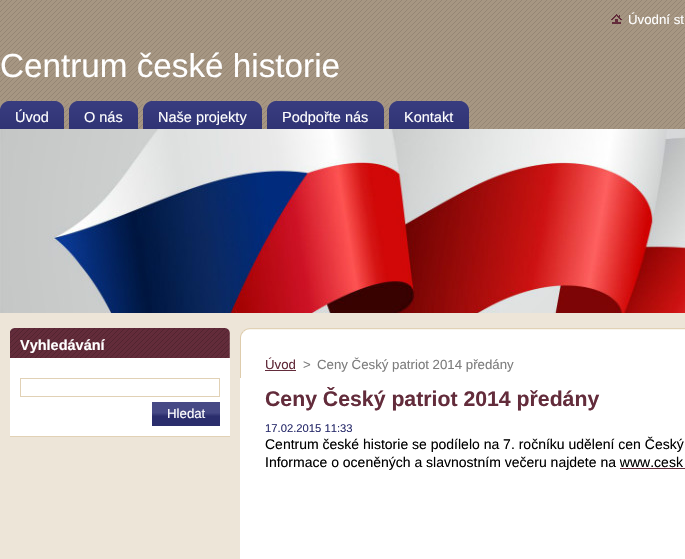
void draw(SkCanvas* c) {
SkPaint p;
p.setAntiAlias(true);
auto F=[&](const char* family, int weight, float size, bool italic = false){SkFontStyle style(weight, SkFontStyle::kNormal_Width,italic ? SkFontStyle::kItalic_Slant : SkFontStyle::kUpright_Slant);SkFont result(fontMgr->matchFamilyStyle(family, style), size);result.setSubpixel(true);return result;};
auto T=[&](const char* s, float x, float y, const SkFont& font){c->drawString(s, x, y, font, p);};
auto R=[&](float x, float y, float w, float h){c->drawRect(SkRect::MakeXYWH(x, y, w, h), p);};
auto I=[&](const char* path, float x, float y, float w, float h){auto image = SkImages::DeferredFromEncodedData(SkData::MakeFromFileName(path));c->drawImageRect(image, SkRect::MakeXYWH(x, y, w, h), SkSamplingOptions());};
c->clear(0xffffffff);
I("1.png",0,0,685,129);
I("2.png",611,14,11,10);
auto f1 = F("Liberation Sans",400,13.25);
p.setColor(0xffffffff);
T("Úvodní st",628,24,f1);
auto f2 = F("Liberation Sans",400,33.25);
T("Centrum české historie",0,77,f2);
I("3.png",0,101,64,28);
I("4.png",0,101,8,8);
I("5.png",56,101,8,8);
auto f3 = F("Liberation Sans",400,14.5);
T("Úvod",15,122,f3);
I("6.png",69,101,69,28);
I("4.png",69,101,8,8);
I("5.png",130,101,8,8);
T("O nás",84,122,f3);
I("7.png",143,101,119,28);
I("4.png",143,101,8,8);
I("5.png",254,101,8,8);
T("Naše projekty",158,122,f3);
I("8.png",267,101,117,28);
I("4.png",267,101,8,8);
I("5.png",376,101,8,8);
T("Podpořte nás",282,122,f3);
I("9.png",389,101,80,28);
I("4.png",389,101,8,8);
I("5.png",461,101,8,8);
T("Kontakt",404,122,f3);
I("10.png",0,129,685,184);
p.setColor(0xffede5d8);
R(0,313,685,246);
p.setColor(0xffffffff);
R(10,358,220,78);
p.setColor(0xffe1d1b5);
R(10,436,220,1);
I("11.png",10,328,220,30);
auto f4 = F("Liberation Sans",700,14.5);
p.setColor(0xffffffff);
T("Vyhledávání",20,350,f4);
p.setStroke(true);
p.setStrokeWidth(1);
p.setColor(0xffe1d1b5);
c->drawRect(SkRect::MakeXYWH(20.5,378.5,199,18),p);
I("12.png",152,402,68,24);
p.setStroke(false);
p.setColor(0xffffffff);
T("Hledat",167,418,f1);
I("13.png",240,328,445,50);
R(240,378,445,181);
p.setColor(0xff632c3b);
T("Úvod",265,369,f1);
R(265,370,31,1);
p.setColor(0xff7d7d7d);
T(">",303,369,f1);
T("Ceny Český patriot 2014 předány",317,369,f1);
auto f5 = F("Liberation Sans",700,21.25);
p.setColor(0xff632c3b);
T("Ceny Český patriot 2014 předány",265,406,f5);
auto f6 = F("Liberation Sans",400,11.25);
p.setColor(0xff2a2d6c);
T("17.02.2015 11:33",265,432,f6);
auto f7 = F("Liberation Sans",400,14);
p.setColor(0xff000000);
T("Centrum české historie se podílelo na 7. ročníku udělení cen Český",265,449,f7);
T("Informace o oceněných a slavnostním večeru najdete na www.cesk",265,467,f7);
p.setColor(0xff632c3b);
R(620,468,65,1);
}
